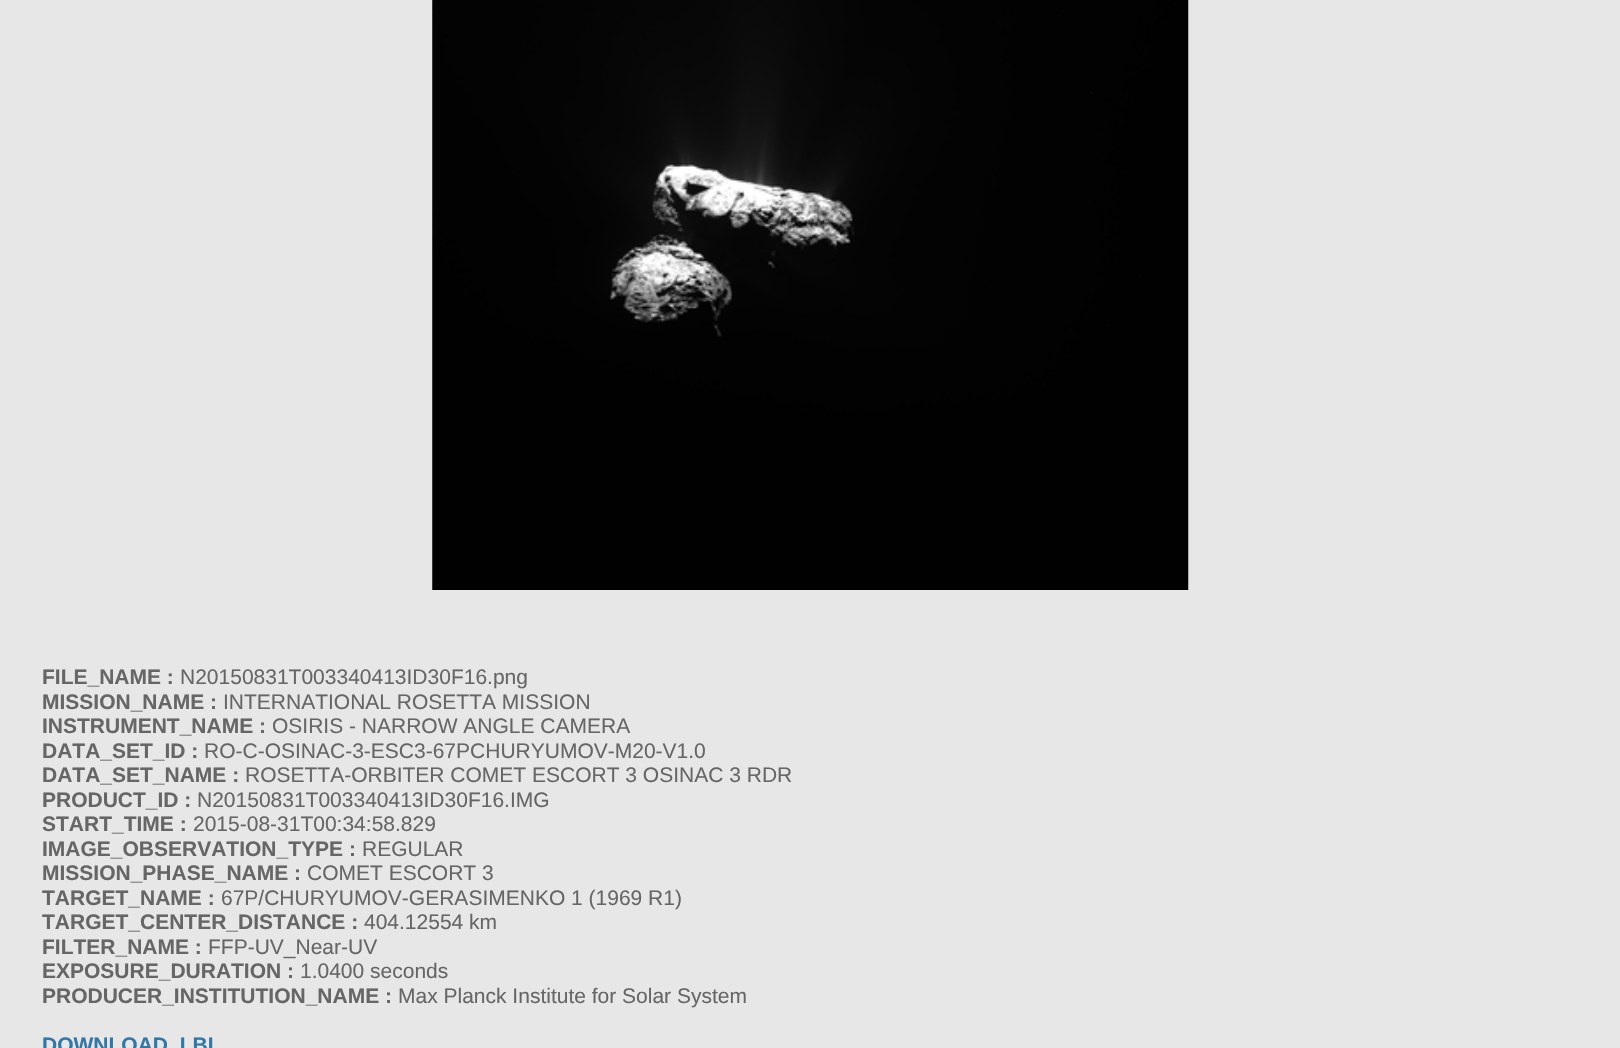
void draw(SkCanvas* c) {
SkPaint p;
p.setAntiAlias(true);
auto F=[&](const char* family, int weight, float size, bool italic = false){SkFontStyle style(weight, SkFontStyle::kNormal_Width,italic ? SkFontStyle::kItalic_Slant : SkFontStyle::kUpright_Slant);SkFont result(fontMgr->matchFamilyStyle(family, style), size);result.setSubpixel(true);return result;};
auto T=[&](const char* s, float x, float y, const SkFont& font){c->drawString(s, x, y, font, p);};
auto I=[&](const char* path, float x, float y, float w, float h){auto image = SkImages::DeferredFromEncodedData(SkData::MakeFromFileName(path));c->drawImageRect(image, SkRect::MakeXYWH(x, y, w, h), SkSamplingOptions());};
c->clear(0xffe7e7e7);
I("1.png",432,0,757,590);
auto f1 = F("Liberation Sans",700,21);
p.setColor(0xff666666);
T("FILE_NAME :",42,684,f1);
auto f2 = F("Liberation Sans",400,21);
T("N20150831T003340413ID30F16.png",180,684,f2);
T("MISSION_NAME :",42,709,f1);
T("INTERNATIONAL ROSETTA MISSION",223,709,f2);
T("INSTRUMENT_NAME :",42,733,f1);
T("OSIRIS - NARROW ANGLE CAMERA",272,733,f2);
T("DATA_SET_ID :",42,758,f1);
T("RO-C-OSINAC-3-ESC3-67PCHURYUMOV-M20-V1.0",204,758,f2);
T("DATA_SET_NAME :",42,782,f1);
T("ROSETTA-ORBITER COMET ESCORT 3 OSINAC 3 RDR",245,782,f2);
T("PRODUCT_ID :",42,807,f1);
T("N20150831T003340413ID30F16.IMG",197,807,f2);
T("START_TIME :",42,831,f1);
T("2015-08-31T00:34:58.829",193,831,f2);
T("IMAGE_OBSERVATION_TYPE :",42,856,f1);
T("REGULAR",362,856,f2);
T("MISSION_PHASE_NAME :",42,880,f1);
T("COMET ESCORT 3",307,880,f2);
T("TARGET_NAME :",42,905,f1);
T("67P/CHURYUMOV-GERASIMENKO 1 (1969 R1)",221,905,f2);
T("TARGET_CENTER_DISTANCE :",42,929,f1);
T("404.12554 km",364,929,f2);
T("FILTER_NAME :",42,954,f1);
T("FFP-UV_Near-UV",208,954,f2);
T("EXPOSURE_DURATION :",42,978,f1);
T("1.0400 seconds",300,978,f2);
T("PRODUCER_INSTITUTION_NAME :",42,1003,f1);
T("Max Planck Institute for Solar System",398,1003,f2);
p.setColor(0xff3277a6);
T("DOWNLOAD .LBL",42,1052,f1);
}
